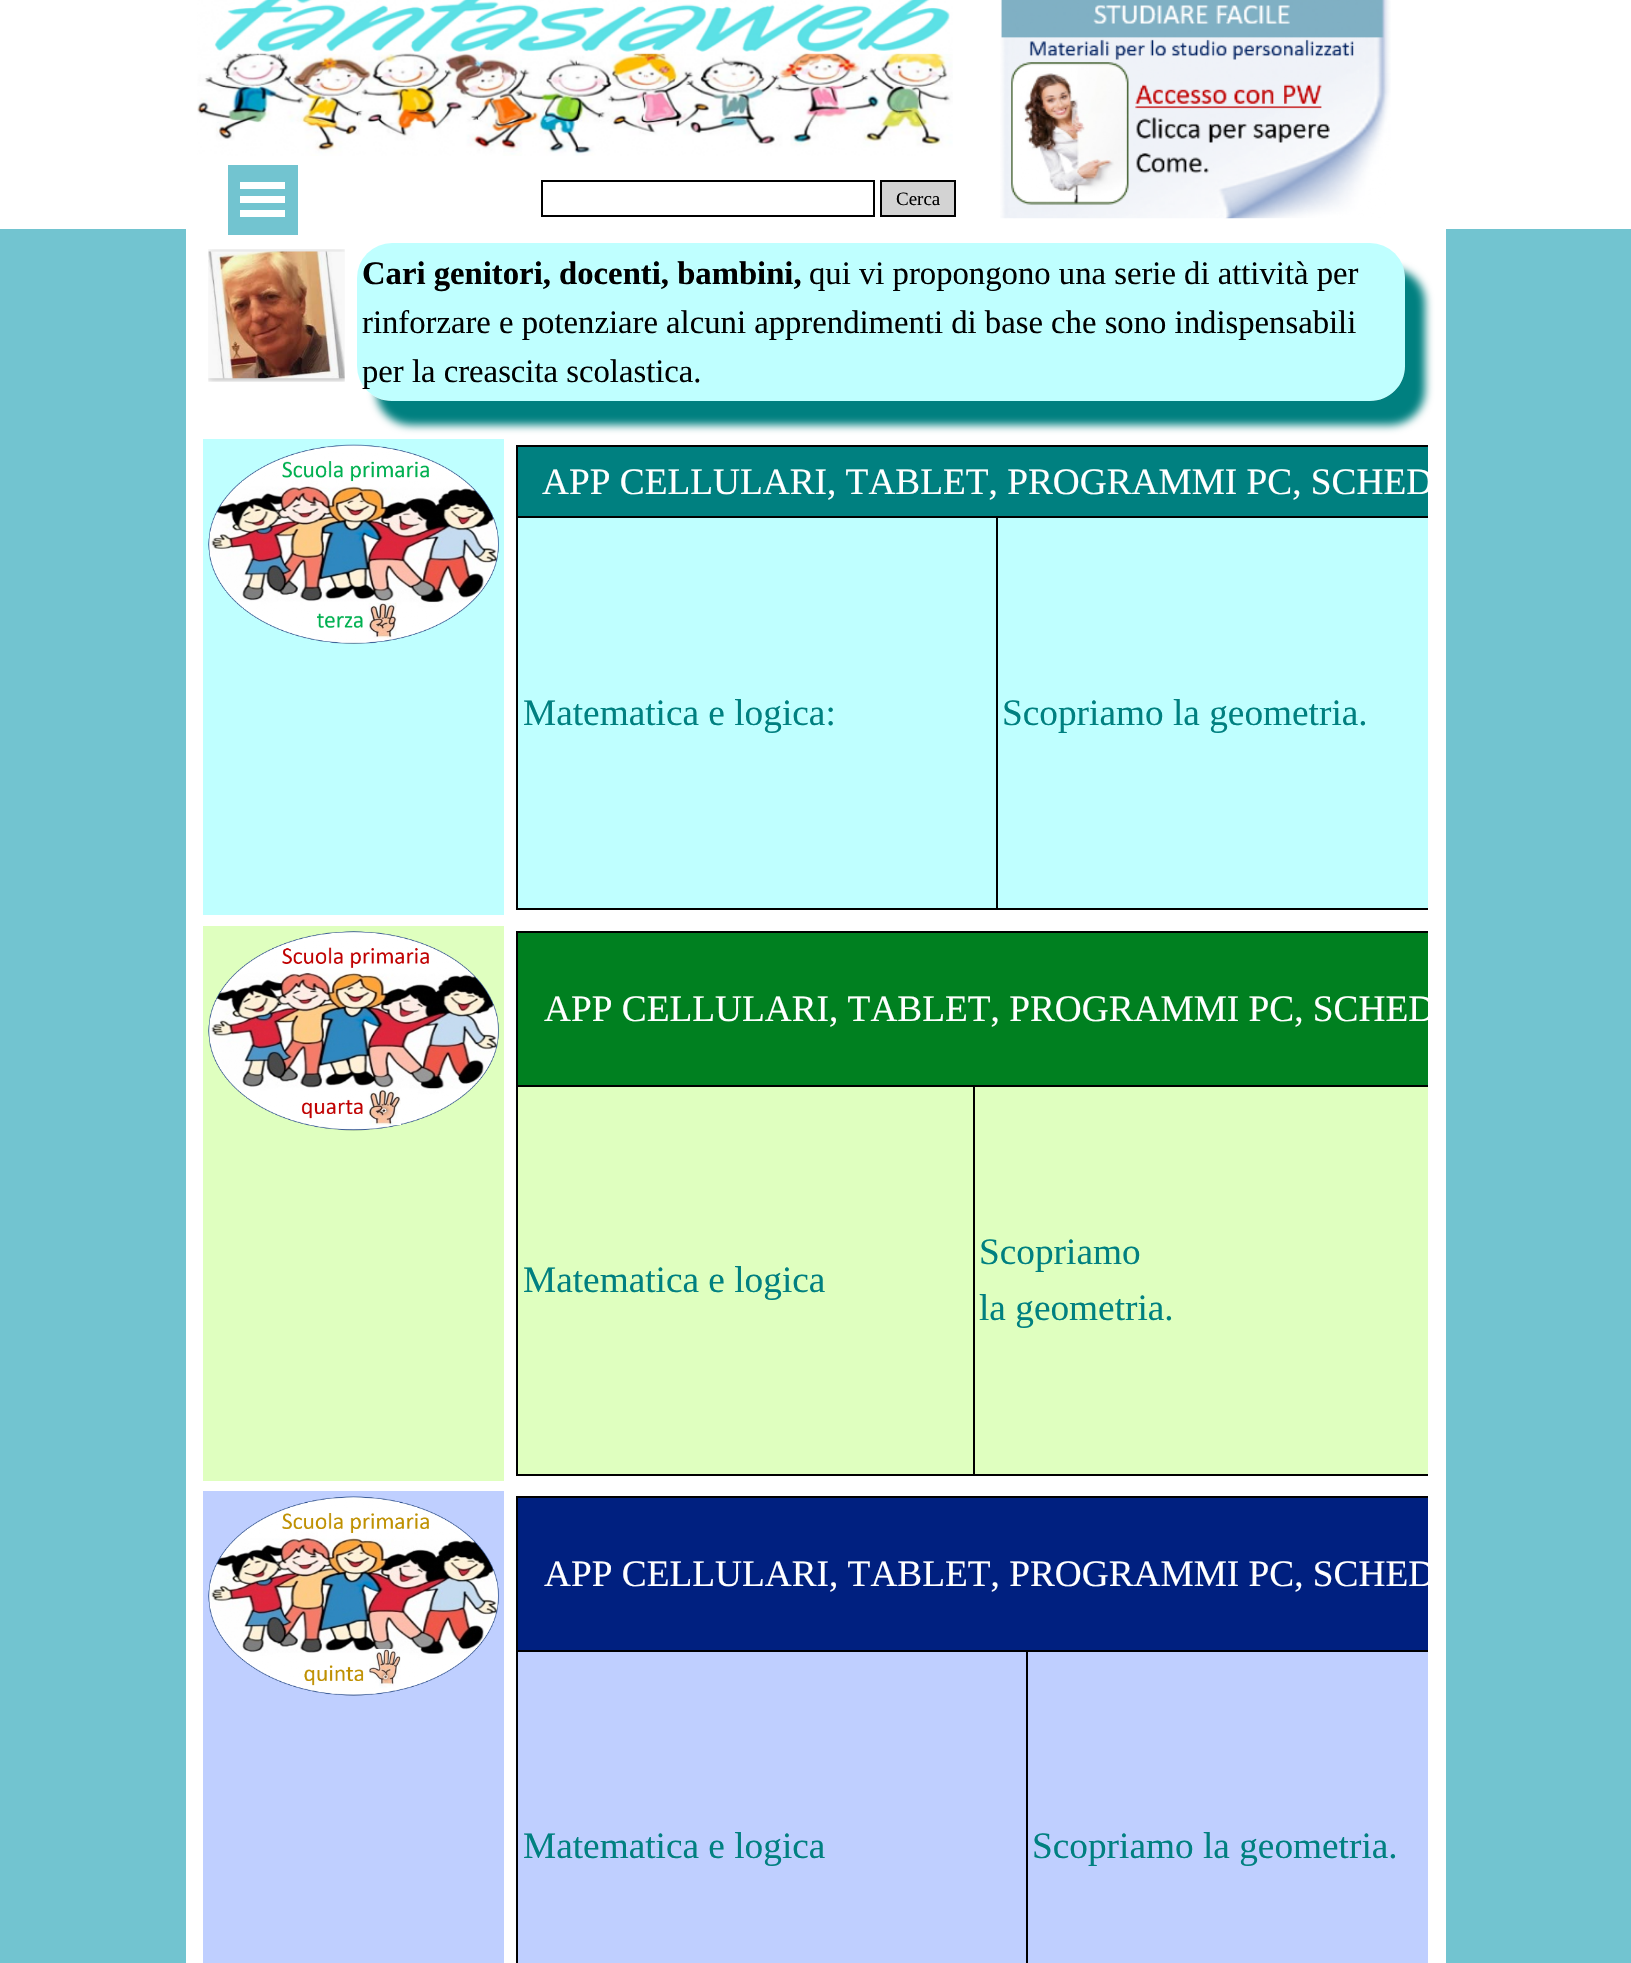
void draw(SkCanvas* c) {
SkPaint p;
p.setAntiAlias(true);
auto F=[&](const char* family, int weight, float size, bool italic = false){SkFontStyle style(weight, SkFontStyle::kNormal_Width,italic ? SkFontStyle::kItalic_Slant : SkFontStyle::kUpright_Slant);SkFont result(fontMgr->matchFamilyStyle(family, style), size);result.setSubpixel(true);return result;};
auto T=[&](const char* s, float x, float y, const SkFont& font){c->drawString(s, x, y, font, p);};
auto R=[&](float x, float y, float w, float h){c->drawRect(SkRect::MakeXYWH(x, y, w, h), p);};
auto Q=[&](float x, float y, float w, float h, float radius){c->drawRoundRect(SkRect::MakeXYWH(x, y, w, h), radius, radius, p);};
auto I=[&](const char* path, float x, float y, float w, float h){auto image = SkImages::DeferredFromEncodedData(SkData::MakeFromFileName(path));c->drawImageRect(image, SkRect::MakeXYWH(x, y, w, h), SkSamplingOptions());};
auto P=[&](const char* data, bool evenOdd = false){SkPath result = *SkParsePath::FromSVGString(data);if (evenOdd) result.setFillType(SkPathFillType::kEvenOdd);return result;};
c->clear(0xff72c4d0);
p.setColor(0xffffffff);
R(0,0,1631,229);
I("1.png",197,0,756,156);
I("2.png",1000,0,391,219);
R(186,229,1260,1734);
p.setColor(0xff72c4d0);
R(228,165,70,70);
p.setColor(0xffffffff);
R(240,182,45,7);
R(240,196,45,7);
R(240,210,45,7);
p.setStroke(true);
p.setStrokeWidth(2);
p.setColor(0xff000000);
c->drawRect(SkRect::MakeXYWH(542,181,332,35),p);
p.setStroke(false);
p.setColor(0xffd3d3d3);
c->drawRect(SkRect::MakeXYWH(881,181,74,35),p);
p.setStroke(true);
p.setColor(0xff000000);
c->drawRect(SkRect::MakeXYWH(881,181,74,35),p);
auto f1 = F("Liberation Serif",400,19);
p.setStroke(false);
T("Cerca",896,205,f1);
I("3.png",208,249,137,133);
p.setColor(0xffbfffff);
Q(357,243,1048,158,35);
c->save();
c->clipPath(P("M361 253h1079v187h-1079zm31-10h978c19.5 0 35 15.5 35 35v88c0 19.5-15.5 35-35 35h-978c-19.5 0-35-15.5-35-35v-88c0-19.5 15.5-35 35-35z",true),true);
p.setColor(0xff008080);
p.setMaskFilter(SkMaskFilter::MakeBlur(kNormal_SkBlurStyle, 4.5));
c->drawRoundRect(SkRect::MakeXYWH(376,268,1049,157),35,35,p);
p.setMaskFilter(nullptr);
c->restore();
auto f2 = F("Liberation Serif",700,32.7);
p.setColor(0xff000000);
T("Cari genitori, docenti, bambini,",362,284,f2);
auto f3 = F("Liberation Serif",400,32.7);
T("qui vi propongono una serie di attività per",809,284,f3);
T("rinforzare e potenziare alcuni apprendimenti di base che sono indispensabili",362,333,f3);
T("per la creascita scolastica.",362,382,f3);
p.setColor(0xffbfffff);
R(203,439,301,476);
I("4.png",208,444,291,200);
p.setColor(0xff008080);
R(518,447,910,69);
p.setColor(0xff000000);
R(516,445,912,2);
R(996,516,432,2);
R(996,908,432,2);
R(996,516,2,394);
R(516,516,482,2);
R(516,908,482,2);
R(516,516,2,394);
R(516,445,2,73);
c->save();
c->clipRect(SkRect::MakeXYWH(511,439,917,476));
auto f4 = F("Liberation Serif",400,37.3);
p.setColor(0xffffffff);
T("APP CELLULARI, TABLET, PROGRAMMI PC, SCHED",542,494,f4);
c->restore();
p.setColor(0xffbfffff);
R(518,518,478,390);
p.setColor(0xff008080);
T("Matematica e logica:",523,725,f4);
p.setColor(0xffbfffff);
R(998,518,430,390);
p.setColor(0xff008080);
T("Scopriamo la geometria.",1002,725,f4);
p.setColor(0xffdfffbf);
R(203,926,301,555);
I("5.png",208,931,291,200);
p.setColor(0xff008020);
R(518,933,910,152);
p.setColor(0xff000000);
R(516,931,912,2);
R(973,1085,455,2);
R(973,1474,455,2);
R(973,1085,2,390);
R(516,1085,459,2);
R(516,1474,459,2);
R(516,1085,2,390);
R(516,931,2,156);
c->save();
c->clipRect(SkRect::MakeXYWH(511,926,917,555));
p.setColor(0xffffffff);
T("APP CELLULARI, TABLET, PROGRAMMI PC, SCHED",544,1021,f4);
c->restore();
p.setColor(0xffdfffbf);
R(518,1087,455,387);
p.setColor(0xff008080);
T("Matematica e logica",523,1292,f4);
p.setColor(0xffdfffbf);
R(975,1087,453,387);
p.setColor(0xff008080);
T("Scopriamo",979,1264,f4);
T("la geometria.",979,1320,f4);
p.setColor(0xffbfcfff);
R(203,1491,301,472);
I("6.png",208,1496,291,200);
p.setColor(0xff002080);
R(518,1498,910,152);
p.setColor(0xff000000);
R(516,1496,912,2);
R(1026,1650,402,2);
R(1026,1650,2,313);
R(516,1650,511,2);
R(516,1650,2,313);
R(516,1496,2,156);
c->save();
c->clipRect(SkRect::MakeXYWH(511,1491,917,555));
p.setColor(0xffffffff);
T("APP CELLULARI, TABLET, PROGRAMMI PC, SCHED",544,1586,f4);
c->restore();
p.setColor(0xffbfcfff);
R(518,1652,508,311);
p.setColor(0xff008080);
T("Matematica e logica",523,1858,f4);
p.setColor(0xffbfcfff);
R(1028,1652,400,311);
p.setColor(0xff008080);
T("Scopriamo la geometria.",1032,1858,f4);
}
